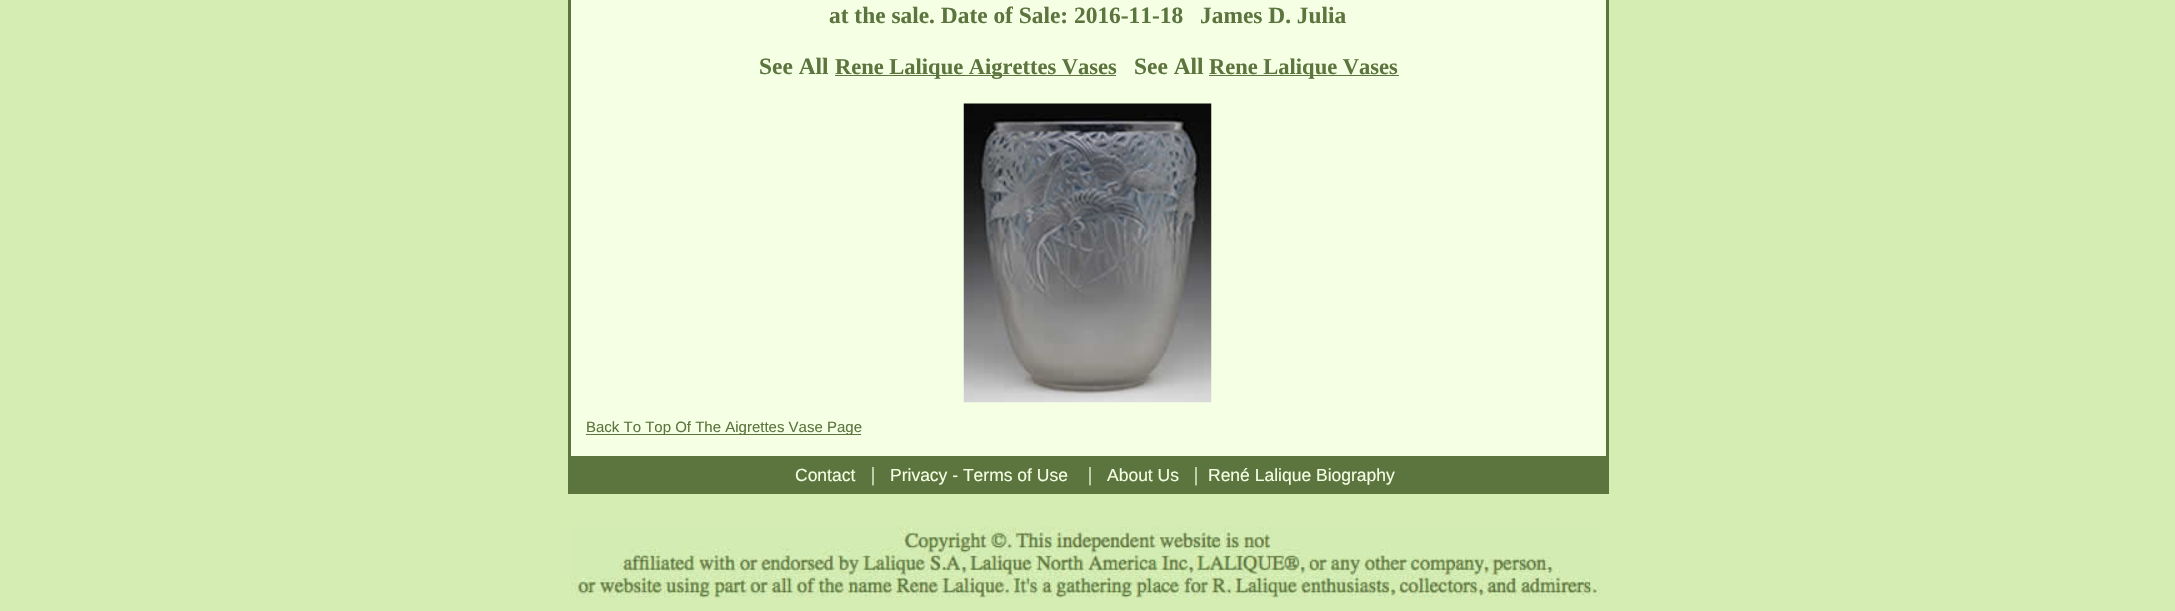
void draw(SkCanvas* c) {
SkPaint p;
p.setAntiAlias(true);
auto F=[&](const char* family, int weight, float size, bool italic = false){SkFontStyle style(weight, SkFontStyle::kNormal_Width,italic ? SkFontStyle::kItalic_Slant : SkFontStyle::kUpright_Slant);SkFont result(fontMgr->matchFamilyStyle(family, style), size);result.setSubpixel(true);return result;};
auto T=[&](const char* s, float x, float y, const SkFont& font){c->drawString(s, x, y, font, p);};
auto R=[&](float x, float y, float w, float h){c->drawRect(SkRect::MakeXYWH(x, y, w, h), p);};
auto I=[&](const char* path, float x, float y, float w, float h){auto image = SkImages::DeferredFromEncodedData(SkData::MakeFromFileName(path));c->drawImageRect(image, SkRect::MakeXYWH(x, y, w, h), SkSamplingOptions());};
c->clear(0xffd5edb3);
p.setColor(0xfff4ffe4);
R(571,0,1035,456);
p.setColor(0xff5c743d);
R(1606,0,3,456);
R(568,0,3,456);
auto f1 = F("Liberation Serif",700,23.4);
T("at the sale. Date of Sale: 2016-11-18",829,23,f1);
T("James D. Julia",1200,23,f1);
T("See All",759,74,f1);
R(835,75,281,1);
auto f2 = F("Liberation Serif",700,22.5);
T("Rene Lalique Aigrettes Vases",835,74,f2);
T("See All",1134,74,f1);
R(1209,75,190,1);
T("Rene Lalique Vases",1209,74,f2);
I("1.png",963,103,249,300);
R(586,434,275,1);
auto f3 = F("Liberation Sans",400,15);
T("Back To Top Of The Aigrettes Vase Page",586,432,f3);
R(568,456,1041,38);
auto f4 = F("Liberation Sans",400,17.5);
p.setColor(0xfff4ffe4);
T("Contact",795,481,f4);
auto f5 = F("Liberation Serif",400,20);
T("|",871,481,f5);
T("Privacy - Terms of Use",890,481,f4);
T("|",1088,481,f5);
T("About Us",1107,481,f4);
T("|",1194,481,f5);
T("René Lalique Biography",1208,481,f4);
I("2.png",570,527,1030,71);
}
